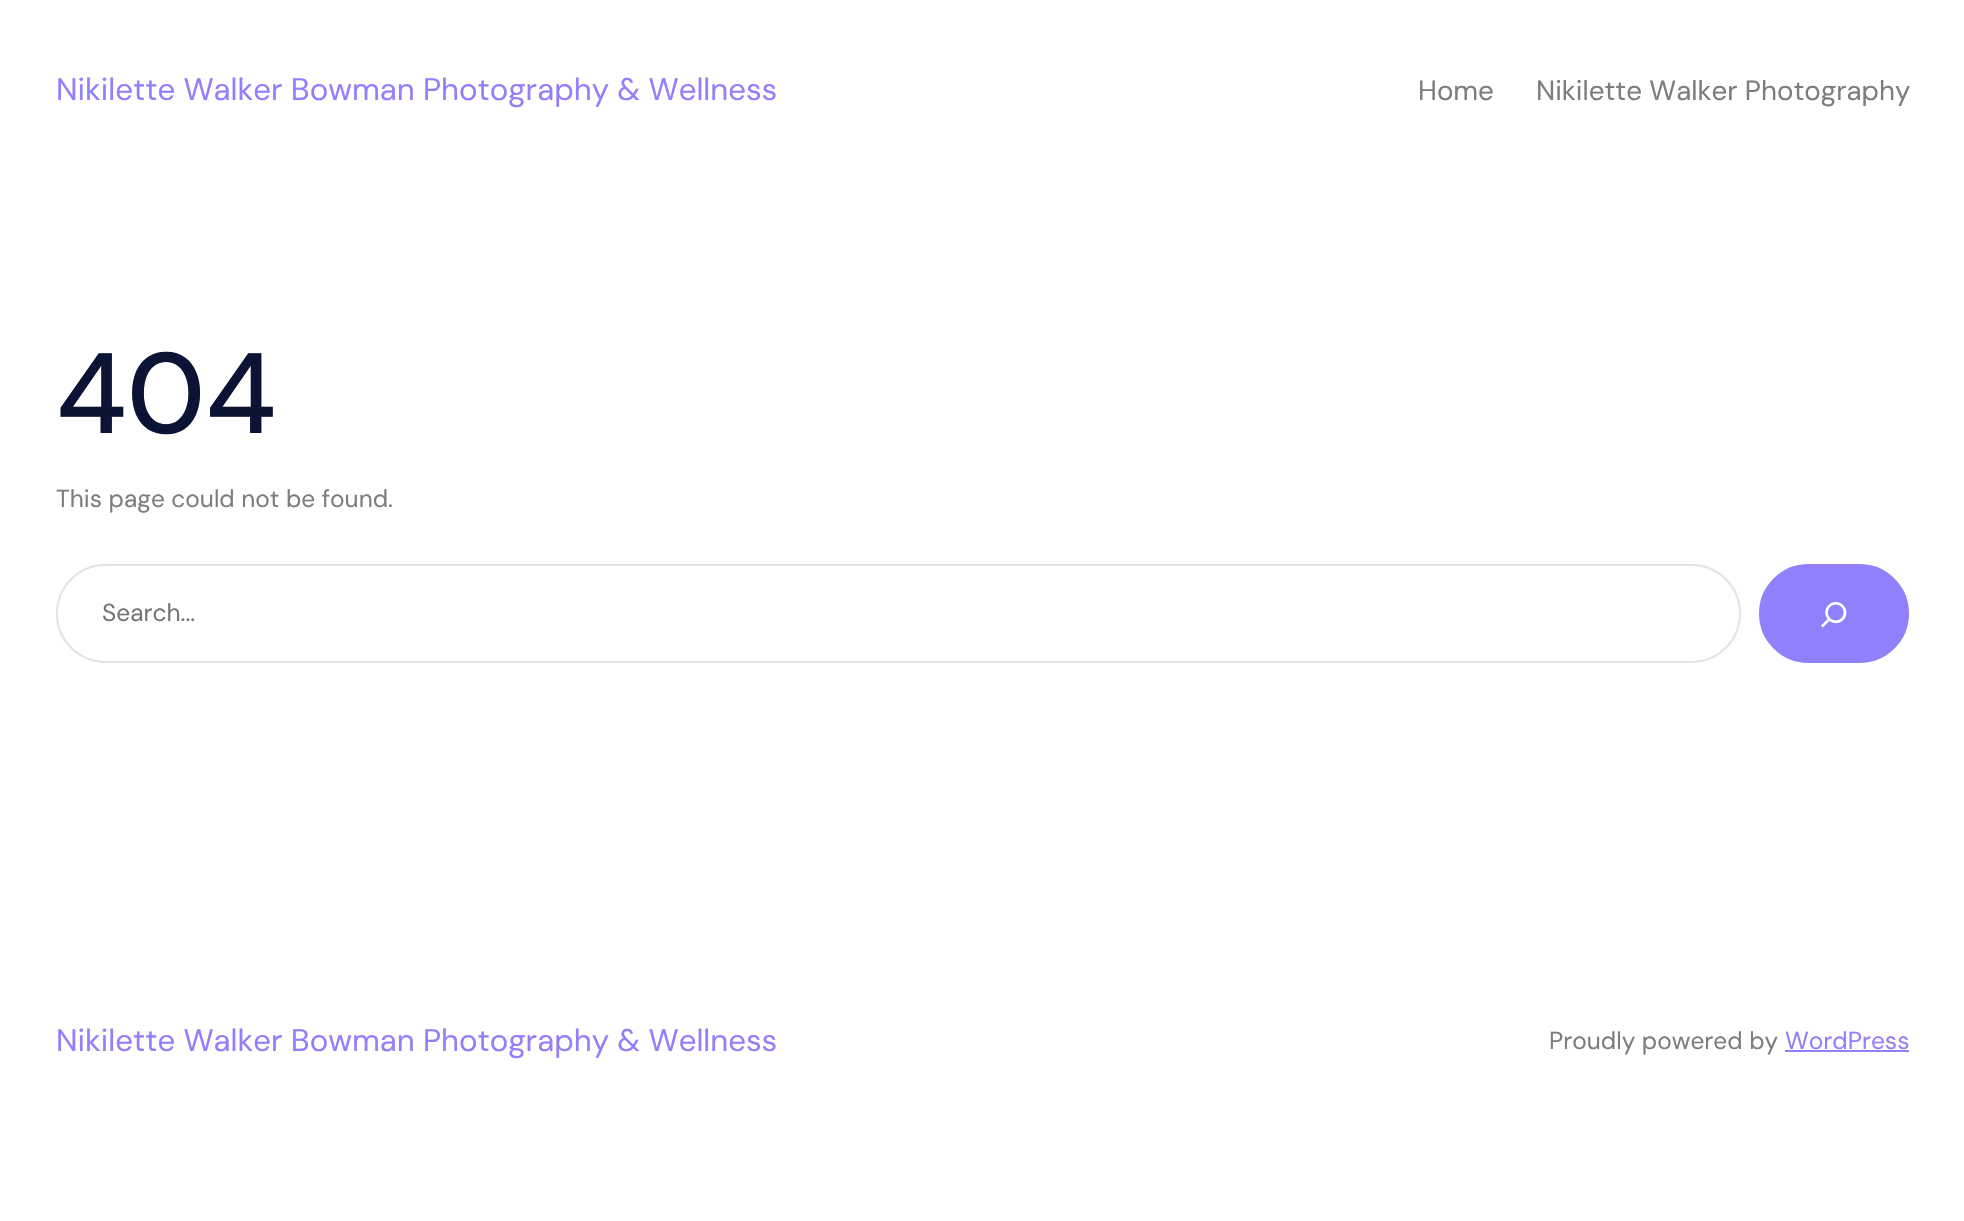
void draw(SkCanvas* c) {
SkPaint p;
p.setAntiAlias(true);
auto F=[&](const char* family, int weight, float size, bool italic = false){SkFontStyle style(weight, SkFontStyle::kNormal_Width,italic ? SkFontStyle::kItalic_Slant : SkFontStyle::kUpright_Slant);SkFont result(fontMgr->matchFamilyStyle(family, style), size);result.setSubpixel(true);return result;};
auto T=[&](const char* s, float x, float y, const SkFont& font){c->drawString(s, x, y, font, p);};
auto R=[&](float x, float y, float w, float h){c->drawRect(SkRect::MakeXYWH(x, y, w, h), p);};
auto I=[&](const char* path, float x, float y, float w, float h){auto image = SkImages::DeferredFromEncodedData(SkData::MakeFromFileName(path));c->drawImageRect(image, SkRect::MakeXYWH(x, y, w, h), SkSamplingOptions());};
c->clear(0xffffffff);
auto f1 = F("DM Sans",400,31.2);
p.setColor(0xff9080fc);
T("Nikilette Walker Bowman Photography & Wellness",56,100,f1);
auto f2 = F("DM Sans",400,27.75);
p.setColor(0xff7d7d7d);
T("Home",1418,100,f2);
T("Nikilette Walker Photography",1536,100,f2);
auto f3 = F("DM Sans",500,114);
p.setColor(0xff0c1436);
T("404",56,433,f3);
auto f4 = F("DM Sans",400,24.5);
p.setColor(0xff7d7d7d);
T("This page could not be found.",56,507,f4);
p.setStroke(true);
p.setStrokeWidth(2);
p.setColor(0xffe3e3e3);
c->drawRoundRect(SkRect::MakeXYWH(57,565,1683,97),48.5,48.5,p);
p.setStroke(false);
p.setColor(0xff757575);
T("Search...",102,621,f4);
p.setColor(0xff9080fc);
c->drawRoundRect(SkRect::MakeXYWH(1760,565,148,97),48.5,48.5,p);
p.setStroke(true);
c->drawRoundRect(SkRect::MakeXYWH(1760,565,148,97),48.5,48.5,p);
I("1.png",1821,602,26,26);
p.setStroke(false);
T("Nikilette Walker Bowman Photography & Wellness",56,1051,f1);
p.setColor(0xff7d7d7d);
T("Proudly powered by",1549,1049,f4);
p.setColor(0xff9080fc);
T("WordPress",1785,1049,f4);
R(1785,1050,124,2);
}
